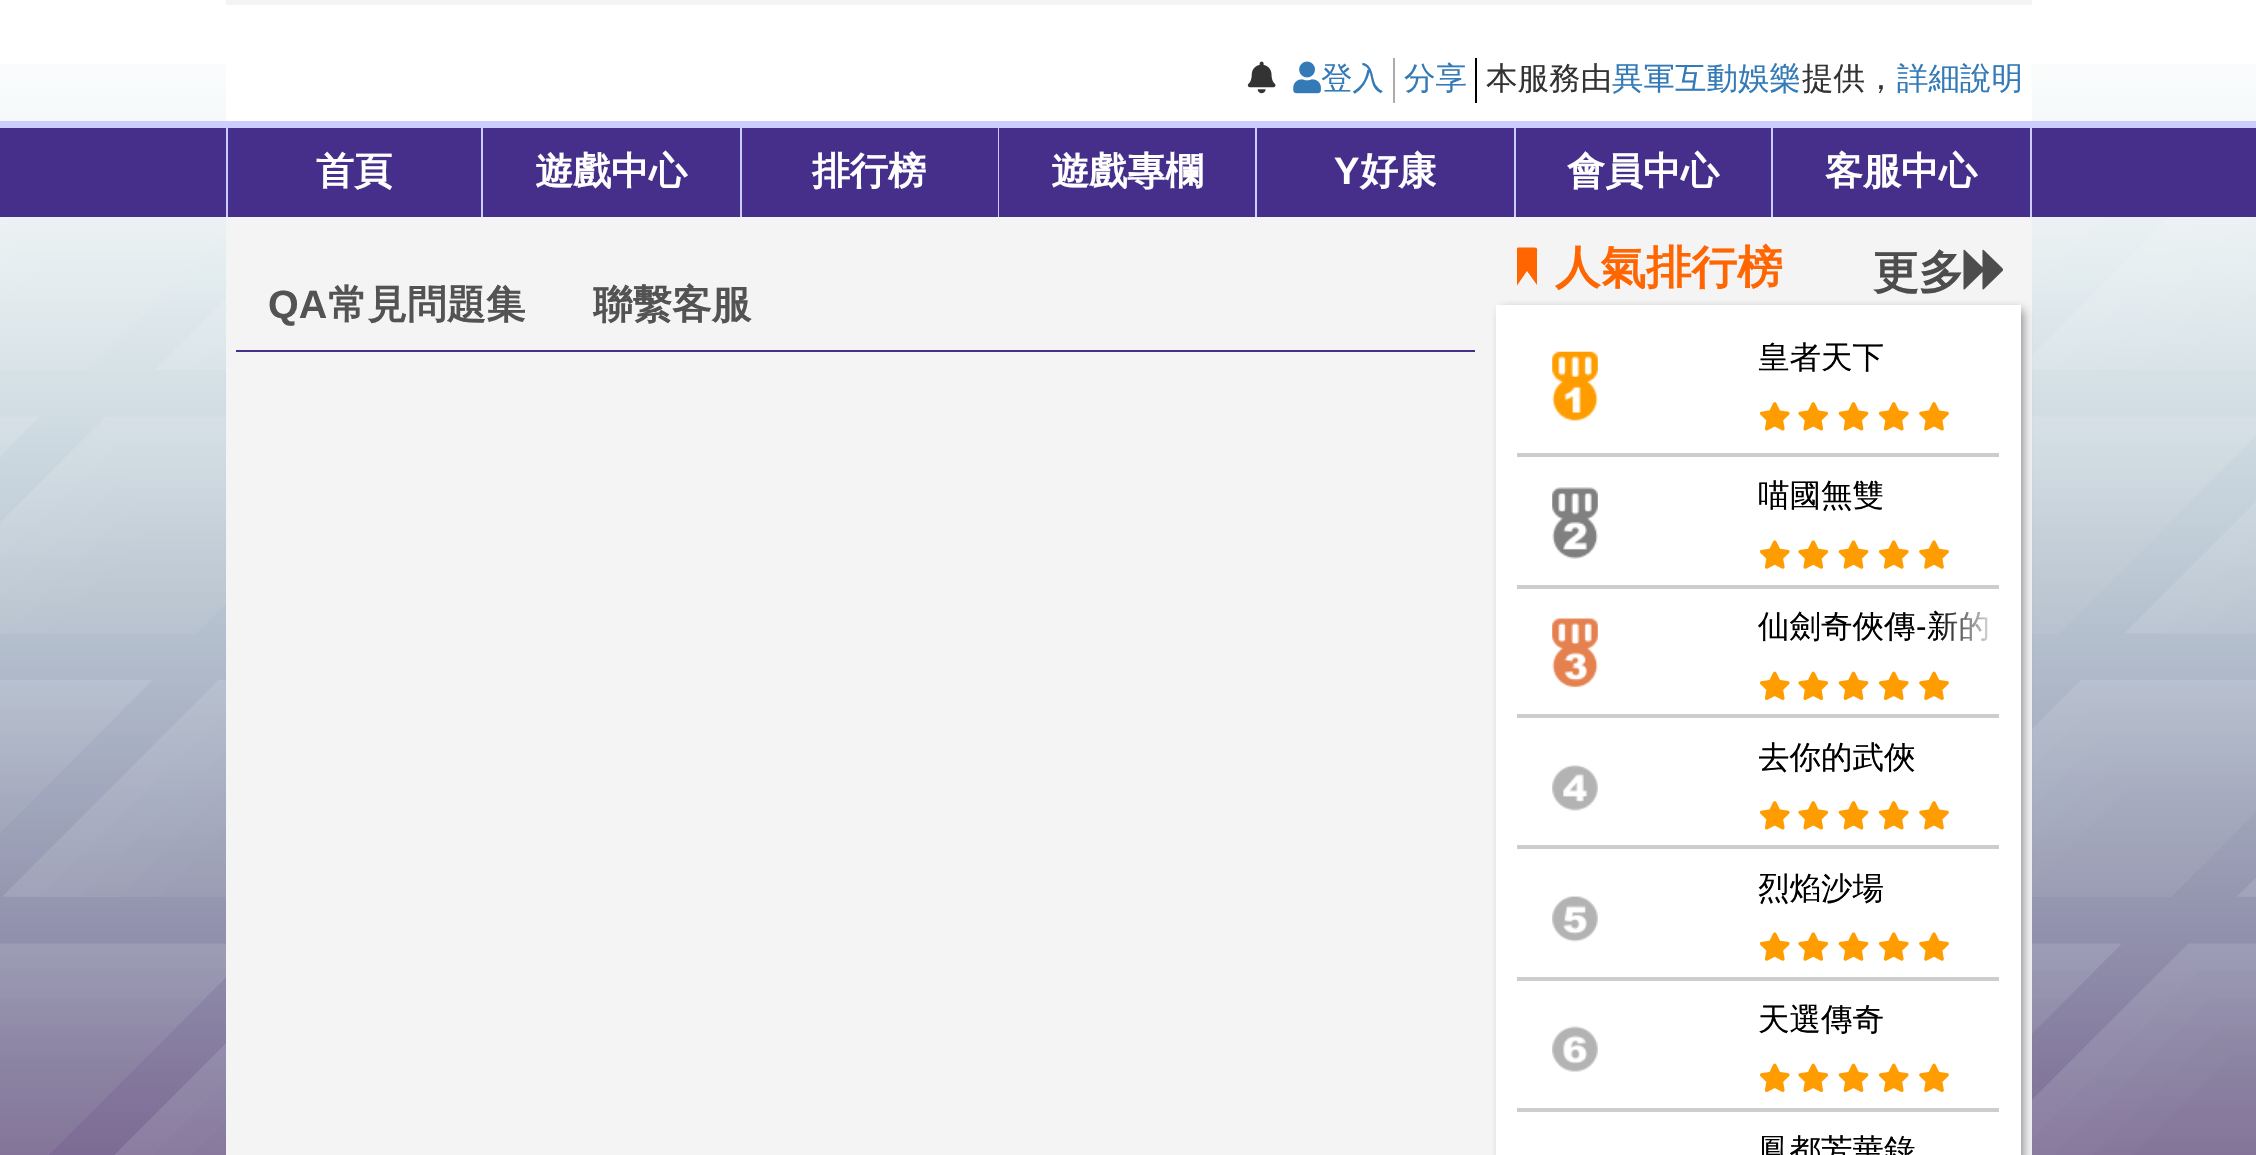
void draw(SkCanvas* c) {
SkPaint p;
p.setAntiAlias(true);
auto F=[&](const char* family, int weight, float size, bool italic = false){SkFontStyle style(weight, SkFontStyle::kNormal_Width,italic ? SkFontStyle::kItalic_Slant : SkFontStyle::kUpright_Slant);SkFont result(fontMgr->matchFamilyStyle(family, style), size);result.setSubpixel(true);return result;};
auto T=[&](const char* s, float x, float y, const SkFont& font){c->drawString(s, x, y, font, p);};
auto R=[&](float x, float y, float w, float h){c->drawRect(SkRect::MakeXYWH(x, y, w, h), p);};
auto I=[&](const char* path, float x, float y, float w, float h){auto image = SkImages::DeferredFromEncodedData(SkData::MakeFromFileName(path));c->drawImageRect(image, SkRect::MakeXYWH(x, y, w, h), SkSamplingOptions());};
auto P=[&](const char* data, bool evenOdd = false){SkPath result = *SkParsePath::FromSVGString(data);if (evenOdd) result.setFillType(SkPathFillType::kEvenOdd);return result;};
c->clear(0xffffffff);
I("1.png",0,64,2256,1091);
p.setColor(0xfff4f4f4);
R(226,0,1806,1155);
p.setColor(0xffffffff);
R(226,5,1806,116);
I("2.png",1247,61,29,33);
I("3.png",1293,61,28,33);
auto f1 = F("WenQuanYi Zen Hei",500,31.5);
p.setColor(0xff337ab7);
T("登入",1321,89,f1);
p.setColor(0xff000000);
R(1475,58,2,45);
p.setColor(0xffacacac);
R(1393,58,2,45);
p.setColor(0xff337ab7);
T("分享",1404,89,f1);
p.setColor(0xff333333);
T("本服務由",1486,89,f1);
p.setColor(0xff337ab7);
T("異軍互動娛樂",1612,89,f1);
p.setColor(0xff333333);
T("提供，",1802,89,f1);
p.setColor(0xff337ab7);
T("詳細說明",1897,89,f1);
p.setColor(0xffccccff);
R(0,121,2256,7);
p.setColor(0xff452f8a);
R(0,128,2256,89);
p.setColor(0xffccccff);
R(481,128,2,89);
R(226,128,2,89);
auto f2 = F("WenQuanYi Zen Hei",700,38);
p.setColor(0xffffffff);
T("首頁",316,184,f2);
p.setColor(0xffccccff);
R(740,128,2,89);
p.setColor(0xffffffff);
T("遊戲中心",535,184,f2);
p.setColor(0xffccccff);
R(998,128,1,89);
p.setColor(0xffffffff);
T("排行榜",812,184,f2);
p.setColor(0xffccccff);
R(1255,128,2,89);
p.setColor(0xffffffff);
T("遊戲專欄",1051,184,f2);
p.setColor(0xffccccff);
R(1514,128,2,89);
auto f3 = F("Liberation Sans",700,38);
p.setColor(0xffffffff);
T("Y",1334,184,f3);
T("好康",1360,184,f2);
p.setColor(0xffccccff);
R(1771,128,2,89);
p.setColor(0xffffffff);
T("會員中心",1567,184,f2);
p.setColor(0xffccccff);
R(2030,128,2,89);
p.setColor(0xffffffff);
T("客服中心",1825,184,f2);
p.setColor(0xff452f8a);
R(236,350,1239,2);
auto f4 = F("Liberation Sans",700,39.5);
p.setColor(0xff535353);
T("QA",268,318,f4);
auto f5 = F("WenQuanYi Zen Hei",700,39.5);
T("常見問題集",328,318,f5);
T("聯繫客服",593,318,f5);
p.setColor(0xffff6500);
c->drawPath(P("M1518 247.5h14.5c6 0 4.5 .5 4.5 7.5v30l-10-14l-10 14.5v-36.5c0-.5 0-1.5 1-1.5z"),p);
auto f6 = F("WenQuanYi Zen Hei",700,45.5);
T("人氣排行榜",1555,283,f6);
p.setColor(0xff4d4d4d);
T("更多",1873,288,f6);
I("4.png",1963,249,40,41);
p.setColor(0x80141428);
p.setMaskFilter(SkMaskFilter::MakeBlur(kNormal_SkBlurStyle, 5));
c->drawRect(SkRect::MakeXYWH(1502,310,521,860),p);
p.setMaskFilter(nullptr);
p.setColor(0xffffffff);
R(1496,305,525,850);
I("5.png",1552,351,46,70);
c->save();
c->clipRect(SkRect::MakeXYWH(1759,336,240,46));
p.setColor(0xff000000);
T("皇者天下",1758,368,f1);
c->restore();
I("6.png",1759,402,31,29);
I("7.png",1798,402,31,29);
I("8.png",1838,402,31,29);
I("6.png",1878,402,31,29);
I("9.png",1919,402,30,29);
p.setColor(0xffcdcdcd);
R(1517,453,482,4);
I("10.png",1552,487,46,72);
p.setColor(0xff000000);
T("喵國無雙",1758,506,f1);
I("11.png",1759,540,31,29);
I("12.png",1798,540,31,29);
I("13.png",1838,540,31,29);
I("11.png",1878,540,31,29);
I("14.png",1919,540,30,29);
p.setColor(0xffcdcdcd);
R(1517,585,482,4);
I("15.png",1552,618,46,70);
p.setColor(0xff000000);
T("仙劍奇俠傳",1758,637,f1);
T("新的",1927,637,f1);
auto f7 = F("Liberation Sans",400,31.5);
T("-",1916,637,f7);
{
const SkColor colors[] = {0x00ffffff,0xffffffff};
const float stops[] = {0,1};
const SkPoint ends[] = {{1937,628}, {1999,628}};
p.setShader(SkGradientShader::MakeLinear(ends, colors, stops, 2, SkTileMode::kClamp));
p.setAlpha(255);
}
R(1938,611,50,31);
I("16.png",1759,671,31,29);
I("17.png",1798,671,31,29);
I("18.png",1838,671,31,29);
I("16.png",1878,671,31,29);
I("19.png",1919,671,30,29);
p.setShader(nullptr);
p.setColor(0xffcdcdcd);
R(1517,714,482,4);
c->save();
c->clipRect(SkRect::MakeXYWH(1759,737,240,45));
p.setColor(0xff000000);
T("去你的武俠",1758,768,f1);
c->restore();
I("6.png",1759,801,31,29);
I("7.png",1798,801,31,29);
I("8.png",1838,801,31,29);
I("6.png",1878,801,31,29);
I("9.png",1919,801,30,29);
I("20.png",1552,765,46,46);
p.setColor(0xffcdcdcd);
R(1517,845,482,4);
p.setColor(0xff000000);
T("烈焰沙場",1758,899,f1);
I("11.png",1759,932,31,29);
I("12.png",1798,932,31,29);
I("13.png",1838,932,31,29);
I("11.png",1878,932,31,29);
I("14.png",1919,932,30,29);
I("21.png",1552,895,46,47);
p.setColor(0xffcdcdcd);
R(1517,977,482,4);
p.setColor(0xff000000);
T("天選傳奇",1758,1030,f1);
I("16.png",1759,1063,31,29);
I("17.png",1798,1063,31,29);
I("18.png",1838,1063,31,29);
I("16.png",1878,1063,31,29);
I("19.png",1919,1063,30,29);
I("22.png",1552,1026,46,46);
p.setColor(0xffcdcdcd);
R(1517,1108,482,4);
p.setColor(0xff000000);
T("鳳都芳華錄",1758,1161,f1);
}
